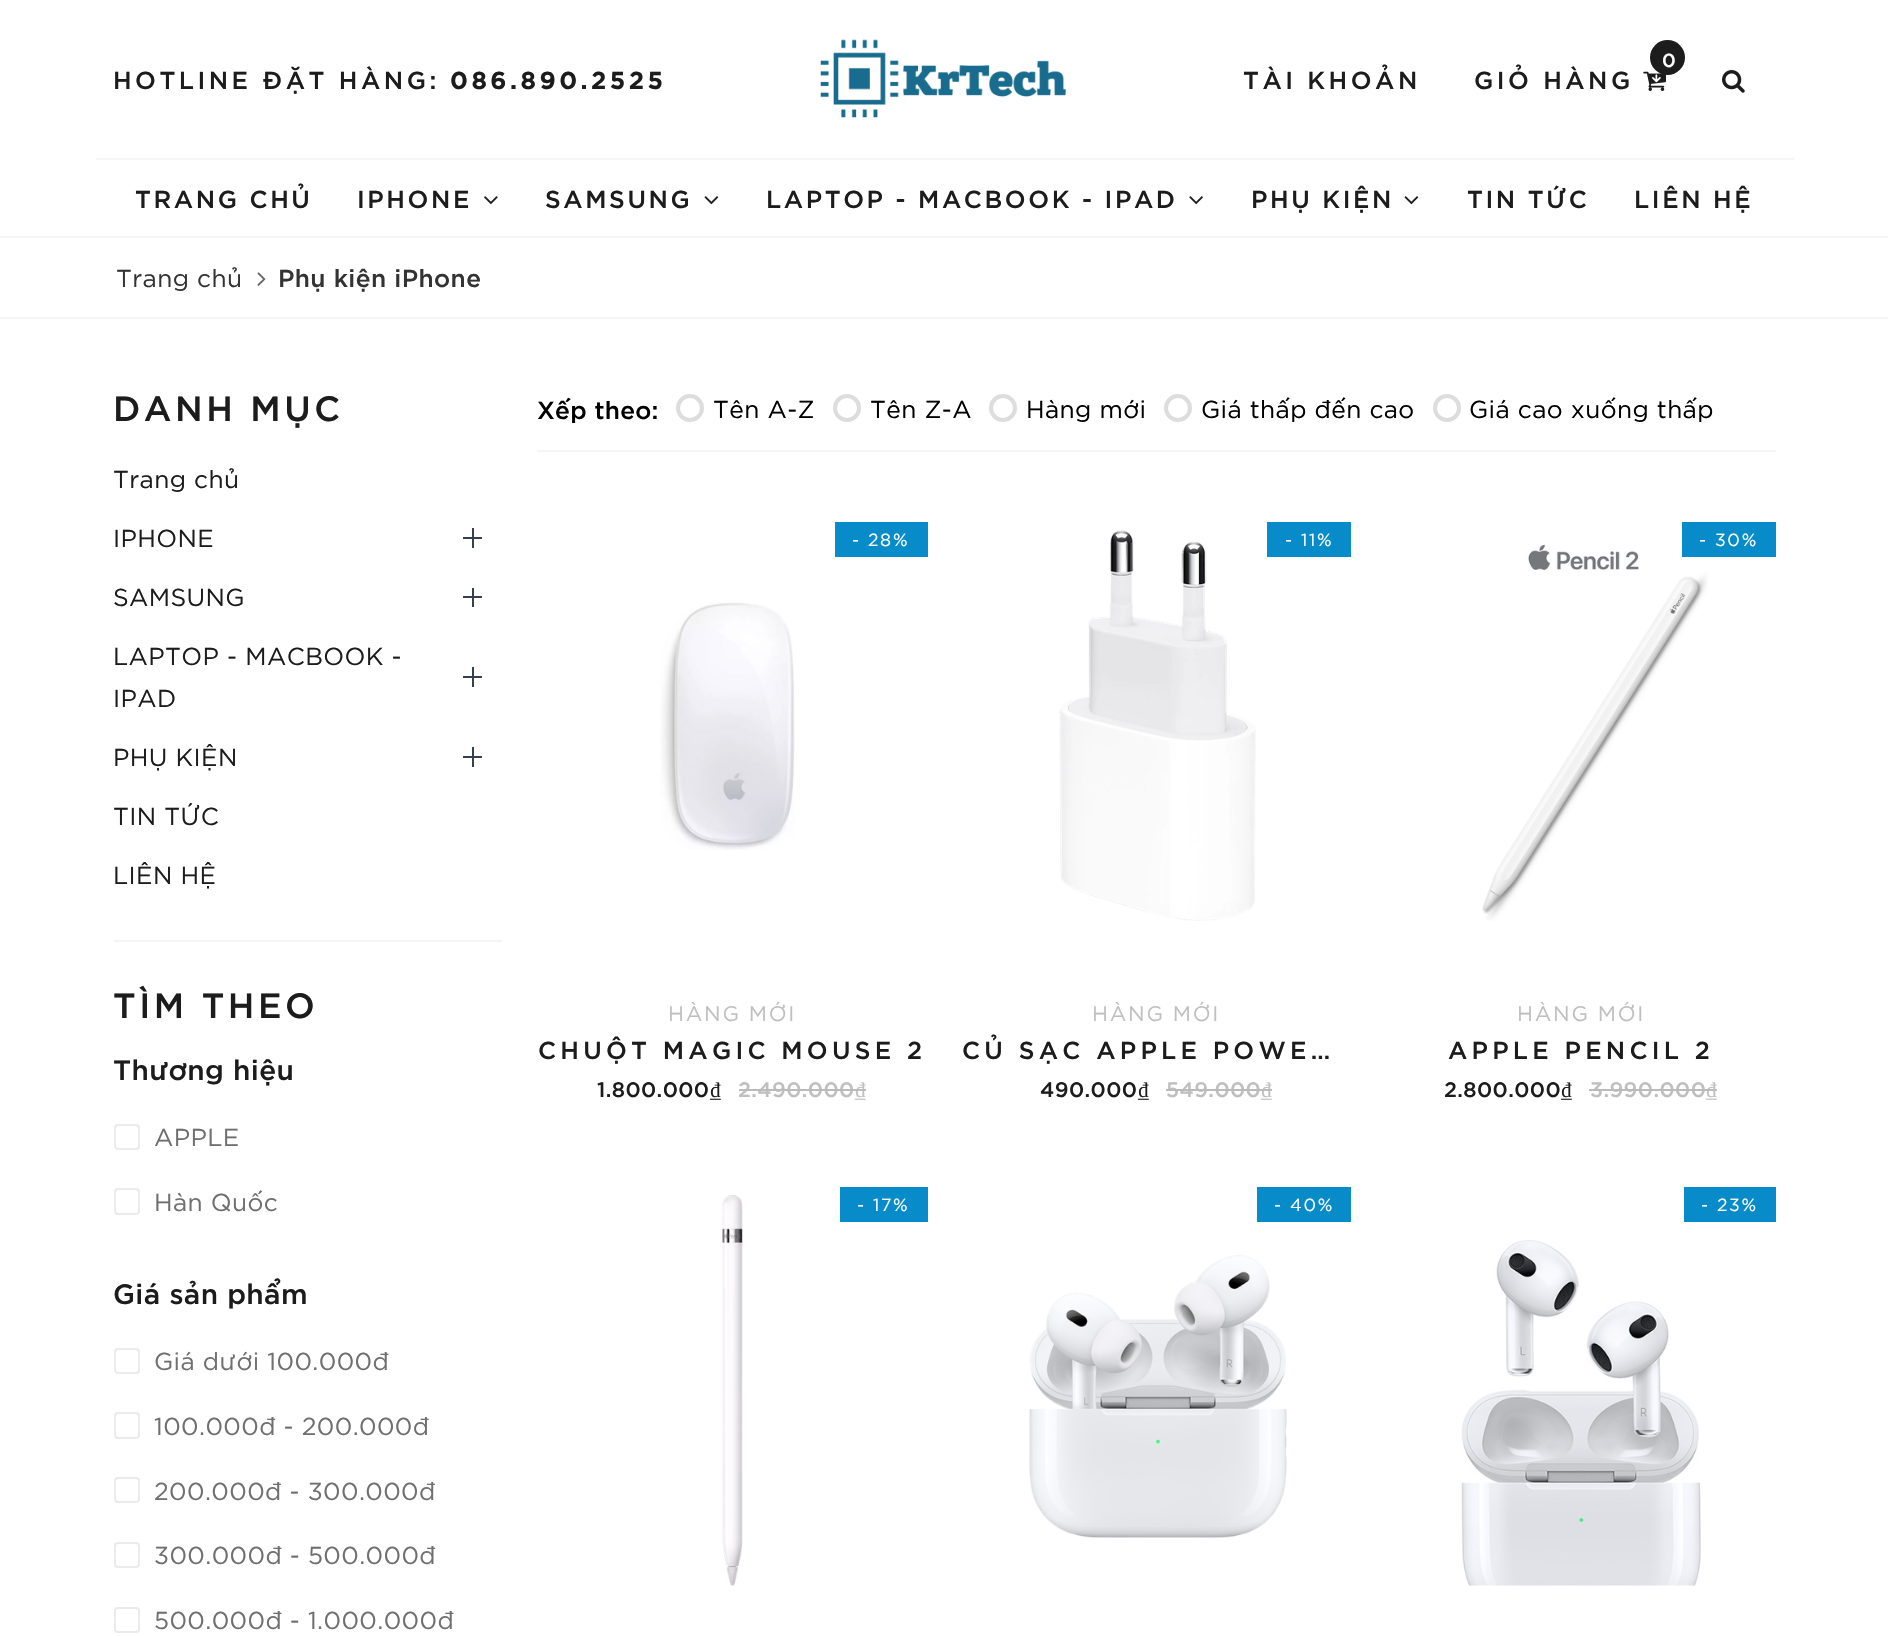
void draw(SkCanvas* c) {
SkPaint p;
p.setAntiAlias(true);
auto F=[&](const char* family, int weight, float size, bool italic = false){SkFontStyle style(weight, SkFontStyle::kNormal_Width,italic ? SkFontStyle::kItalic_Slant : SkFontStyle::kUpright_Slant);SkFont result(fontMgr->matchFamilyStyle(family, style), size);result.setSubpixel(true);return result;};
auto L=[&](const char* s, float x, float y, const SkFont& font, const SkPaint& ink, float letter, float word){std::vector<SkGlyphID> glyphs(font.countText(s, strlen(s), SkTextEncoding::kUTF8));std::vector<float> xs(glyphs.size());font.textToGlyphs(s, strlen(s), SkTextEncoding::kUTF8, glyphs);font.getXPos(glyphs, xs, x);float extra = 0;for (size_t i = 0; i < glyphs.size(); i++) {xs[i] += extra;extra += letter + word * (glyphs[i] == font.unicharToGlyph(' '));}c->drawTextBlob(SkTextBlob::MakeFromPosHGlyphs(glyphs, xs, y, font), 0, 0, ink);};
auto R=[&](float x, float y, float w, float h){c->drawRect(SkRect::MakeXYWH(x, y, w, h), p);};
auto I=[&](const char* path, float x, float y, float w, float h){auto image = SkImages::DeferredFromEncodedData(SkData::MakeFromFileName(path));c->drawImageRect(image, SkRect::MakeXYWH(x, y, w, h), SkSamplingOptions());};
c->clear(0xffffffff);
p.setColor(0xfff5f5f5);
R(96,158,1698,2);
auto f1 = F("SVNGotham",500,24.5);
p.setColor(0xff1c1c1c);
L("HOTLINE ĐẶT HÀNG:",113,89,f1,p,3.5,0);
auto f2 = F("SVNGotham",700,24.5);
L("086.890.2525",450,89,f2,p,3.5,0);
I("1.png",820,39,246,79);
L("TÀI KHOẢN",1243,89,f1,p,3.5,0);
I("2.png",1643,71,23,20);
c->drawCircle(1667.5,57.5,17.5,p);
auto f3 = F("SVNGotham",500,19);
p.setColor(0xffffffff);
L("0",1662,67,f3,p,3.5,0);
p.setColor(0xff1c1c1c);
L("GIỎ HÀNG",1474,89,f1,p,3.5,0);
I("3.png",1722,70,23,23);
L("TRANG CHỦ",135,208,f1,p,2.6,0);
L("IPHONE",357,208,f1,p,2.6,0);
I("4.png",484,196,14,9);
L("SAMSUNG",545,208,f1,p,2.6,0);
I("5.png",704,196,15,9);
L("LAPTOP - MACBOOK - IPAD",766,208,f1,p,2.6,0);
I("6.png",1189,196,14,9);
L("PHỤ KIỆN",1251,208,f1,p,2.6,0);
I("5.png",1404,196,15,9);
L("TIN TỨC",1467,208,f1,p,2.6,0);
L("LIÊN HỆ",1634,208,f1,p,2.6,0);
p.setColor(0xfff5f5f5);
R(0,236,1888,2);
R(0,317,1888,2);
auto f4 = F("SVNGotham",400,24.5);
p.setColor(0xff333333);
L("Trang chủ",116,287,f4,p,.4,0);
I("7.png",257,272,9,14);
L("Phụ kiện iPhone",278,287,f1,p,.4,0);
auto f5 = F("SVNGotham",500,35);
p.setColor(0xff1c1c1c);
L("DANH MỤC",113,421,f5,p,3.5,0);
L("Trang chủ",113,488,f4,p,.4,0);
L("IPHONE",113,547,f4,p,.4,0);
p.setColor(0xff363f4d);
R(472,528,2,20);
R(463,537,19,2);
p.setColor(0xff1c1c1c);
L("SAMSUNG",113,606,f4,p,.4,0);
p.setColor(0xff363f4d);
R(472,588,2,19);
R(463,596,19,2);
p.setColor(0xff1c1c1c);
L("LAPTOP - MACBOOK -",113,665,f4,p,.4,0);
L("IPAD",113,707,f4,p,.4,0);
p.setColor(0xff363f4d);
R(472,667,2,20);
R(463,676,19,2);
p.setColor(0xff1c1c1c);
L("PHỤ KIỆN",113,766,f4,p,.4,0);
p.setColor(0xff363f4d);
R(472,747,2,20);
R(463,756,19,2);
p.setColor(0xff1c1c1c);
L("TIN TỨC",113,825,f4,p,.4,0);
L("LIÊN HỆ",113,884,f4,p,.4,0);
p.setColor(0xfff5f5f5);
R(114,940,388,2);
p.setColor(0xff1c1c1c);
L("TÌM THEO",113,1018,f5,p,3.5,0);
auto f6 = F("SVNGotham",500,28);
L("Thương hiệu",113,1080,f6,p,.4,0);
p.setStroke(true);
p.setStrokeWidth(2);
p.setColor(0xffebebeb);
c->drawRoundRect(SkRect::MakeXYWH(115,1125,24,24),3,3,p);
p.setStroke(false);
p.setColor(0xff6f6f6f);
L("APPLE",154,1146,f4,p,.4,0);
p.setStroke(true);
p.setColor(0xffebebeb);
c->drawRoundRect(SkRect::MakeXYWH(115,1189,24,25),3,3,p);
p.setStroke(false);
p.setColor(0xff6f6f6f);
L("Hàn Quốc",154,1211,f4,p,.4,0);
p.setColor(0xff1c1c1c);
L("Giá sản phẩm",113,1304,f6,p,.4,0);
p.setStroke(true);
p.setColor(0xffebebeb);
c->drawRoundRect(SkRect::MakeXYWH(115,1349,24,24),3,3,p);
p.setStroke(false);
p.setColor(0xff6f6f6f);
L("Giá dưới 100.000đ",154,1370,f4,p,.4,0);
p.setStroke(true);
p.setColor(0xffebebeb);
c->drawRoundRect(SkRect::MakeXYWH(115,1413,24,25),3,3,p);
p.setStroke(false);
p.setColor(0xff6f6f6f);
L("100.000đ - 200.000đ",154,1435,f4,p,.4,0);
p.setStroke(true);
p.setColor(0xffebebeb);
c->drawRoundRect(SkRect::MakeXYWH(115,1478,24,24),3,3,p);
p.setStroke(false);
p.setColor(0xff6f6f6f);
L("200.000đ - 300.000đ",154,1500,f4,p,.4,0);
p.setStroke(true);
p.setColor(0xffebebeb);
c->drawRoundRect(SkRect::MakeXYWH(115,1543,24,24),3,3,p);
p.setStroke(false);
p.setColor(0xff6f6f6f);
L("300.000đ - 500.000đ",154,1564,f4,p,.4,0);
p.setStroke(true);
p.setColor(0xffebebeb);
c->drawRoundRect(SkRect::MakeXYWH(115,1608,24,24),3,3,p);
p.setStroke(false);
p.setColor(0xff6f6f6f);
L("500.000đ - 1.000.000đ",154,1629,f4,p,.4,0);
p.setColor(0xfff5f5f5);
R(537,450,1239,2);
p.setColor(0xff000000);
L("Xếp theo:",537,419,f1,p,.25,0);
p.setStroke(true);
p.setStrokeWidth(4);
p.setColor(0xffdddddd);
c->drawCircle(690,408,12,p);
p.setStroke(false);
p.setColor(0xff000000);
L("Tên A-Z",713,418,f4,p,.4,0);
p.setStroke(true);
p.setColor(0xffdddddd);
c->drawCircle(847,408,12,p);
p.setStroke(false);
p.setColor(0xff000000);
L("Tên Z-A",870,418,f4,p,.4,0);
p.setStroke(true);
p.setColor(0xffdddddd);
c->drawCircle(1003,408,12,p);
p.setStroke(false);
p.setColor(0xff000000);
L("Hàng mới",1026,418,f4,p,.4,0);
p.setStroke(true);
p.setColor(0xffdddddd);
c->drawCircle(1178,408,12,p);
p.setStroke(false);
p.setColor(0xff000000);
L("Giá thấp đến cao",1201,418,f4,p,.4,0);
p.setStroke(true);
p.setColor(0xffdddddd);
c->drawCircle(1447,408,12,p);
p.setStroke(false);
p.setColor(0xff000000);
L("Giá cao xuống thấp",1469,418,f4,p,.4,0);
p.setColor(0xff078bc9);
R(835,522,93,35);
auto f7 = F("SVNGotham",400,17.5);
p.setColor(0xffffffff);
L("- 28%",852,546,f7,p,1.75,0);
I("8.png",660,602,135,248);
auto f8 = F("SVNGotham",400,21);
p.setColor(0xffbfbfbf);
L("HÀNG MỚI",668,1021,f8,p,1.75,0);
p.setColor(0xff1c1c1c);
L("CHUỘT MAGIC MOUSE 2",538,1059,f1,p,4.25,0);
auto f9 = F("SVNGotham",500,21);
L("1.800.000",597,1097,f9,p,.4,0);
auto f10 = F("Liberation Serif",400,21);
L("₫",710,1097,f10,p,.4,0);
p.setColor(0xffbfbfbf);
L("2.490.000",738,1097,f9,p,.4,0);
L("₫",855,1097,f10,p,.4,0);
p.setColor(0xffbbbbbb);
R(739,1089,127,2);
p.setColor(0xff078bc9);
R(1267,522,84,35);
p.setColor(0xffffffff);
L("- 11%",1285,546,f7,p,1.75,0);
I("9.png",1059,530,197,391);
p.setColor(0xffbfbfbf);
L("HÀNG MỚI",1092,1021,f8,p,1.75,0);
p.setColor(0xff1c1c1c);
L("CỦ SẠC APPLE POWE…",962,1059,f1,p,4.25,0);
L("490.000",1040,1097,f9,p,.4,0);
L("₫",1138,1097,f10,p,.4,0);
p.setColor(0xffbfbfbf);
L("549.000",1166,1097,f9,p,.4,0);
L("₫",1261,1097,f10,p,.4,0);
p.setColor(0xffbbbbbb);
R(1166,1089,106,2);
I("10.png",1482,544,226,377);
p.setColor(0xff078bc9);
R(1682,522,94,35);
p.setColor(0xffffffff);
L("- 30%",1699,546,f7,p,1.75,0);
p.setColor(0xffbfbfbf);
L("HÀNG MỚI",1517,1021,f8,p,1.75,0);
p.setColor(0xff1c1c1c);
L("APPLE PENCIL 2",1448,1059,f1,p,4.25,0);
L("2.800.000",1444,1097,f9,p,.4,0);
L("₫",1561,1097,f10,p,.4,0);
p.setColor(0xffbfbfbf);
L("3.990.000",1590,1097,f9,p,.4,0);
L("₫",1706,1097,f10,p,.4,0);
p.setColor(0xffbbbbbb);
R(1589,1089,128,2);
I("11.png",722,1195,21,391);
p.setColor(0xff078bc9);
R(840,1187,88,35);
p.setColor(0xffffffff);
L("- 17%",857,1211,f7,p,1.75,0);
p.setColor(0xff078bc9);
R(1257,1187,94,35);
p.setColor(0xffffffff);
L("- 40%",1274,1211,f7,p,1.75,0);
I("12.png",1029,1255,258,283);
p.setColor(0xff078bc9);
R(1684,1187,92,35);
p.setColor(0xffffffff);
L("- 23%",1701,1211,f7,p,1.75,0);
I("13.png",1461,1240,240,346);
}
